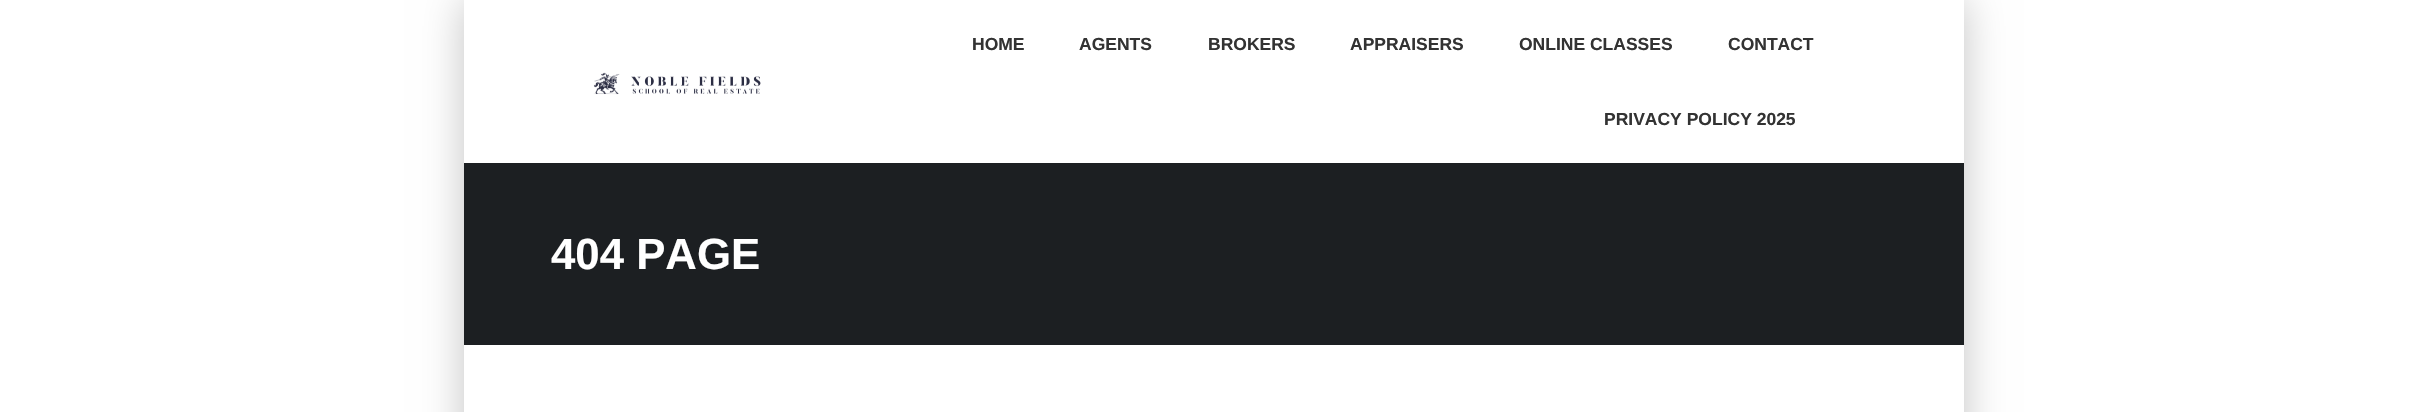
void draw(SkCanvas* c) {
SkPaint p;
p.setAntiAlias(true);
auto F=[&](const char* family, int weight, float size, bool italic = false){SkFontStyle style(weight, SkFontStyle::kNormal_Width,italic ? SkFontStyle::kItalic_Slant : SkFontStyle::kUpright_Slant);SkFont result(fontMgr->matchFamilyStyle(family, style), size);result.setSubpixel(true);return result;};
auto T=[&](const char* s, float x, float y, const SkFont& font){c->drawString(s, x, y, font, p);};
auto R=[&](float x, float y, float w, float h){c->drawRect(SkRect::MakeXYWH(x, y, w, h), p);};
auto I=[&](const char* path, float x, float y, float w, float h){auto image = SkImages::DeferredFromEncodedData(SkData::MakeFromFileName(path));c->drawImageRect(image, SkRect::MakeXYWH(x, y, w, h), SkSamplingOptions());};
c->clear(0xffffffff);
p.setColor(0x3b000000);
p.setMaskFilter(SkMaskFilter::MakeBlur(kNormal_SkBlurStyle, 20));
c->drawRect(SkRect::MakeXYWH(464,0,1500,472),p);
p.setMaskFilter(nullptr);
p.setColor(0xffffffff);
R(464,0,1500,412);
I("1.png",593,72,168,23);
auto f1 = F("Liberation Sans",700,17.5);
p.setColor(0xff333333);
T("HOME",972,50,f1);
T("AGENTS",1079,50,f1);
T("BROKERS",1208,50,f1);
T("APPRAISERS",1350,50,f1);
T("ONLINE CLASSES",1519,50,f1);
T("CONTACT",1728,50,f1);
T("PRIVACY POLICY 2025",1604,125,f1);
p.setColor(0xff1c1f22);
R(464,163,1500,182);
auto f2 = F("Liberation Sans",700,43.75);
p.setColor(0xffffffff);
T("404 PAGE",551,269,f2);
}
